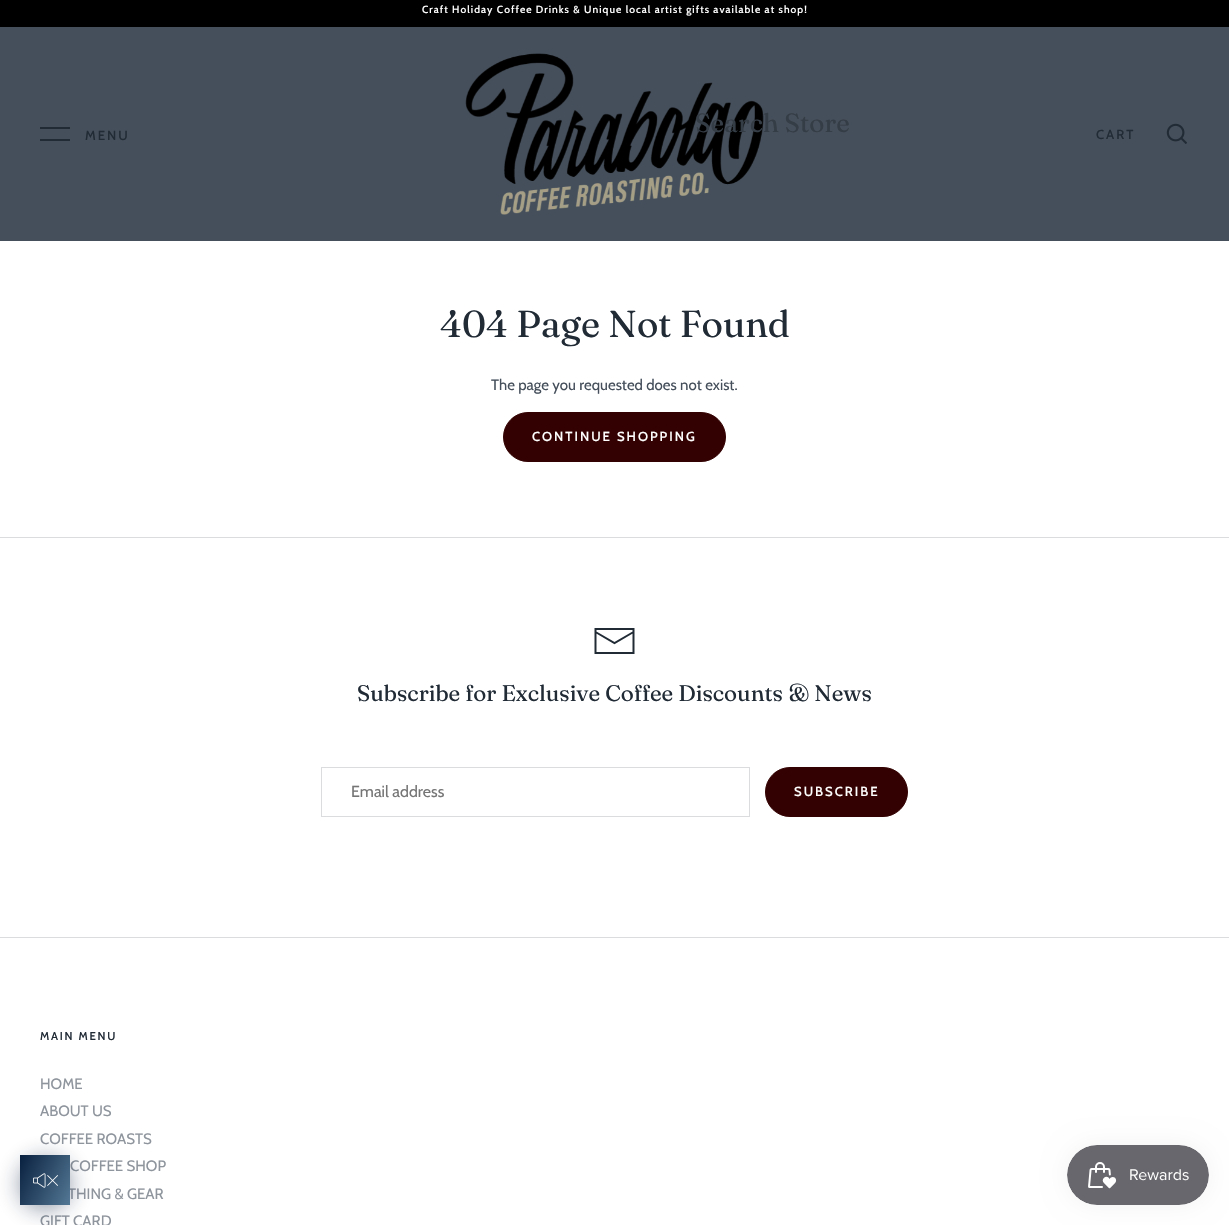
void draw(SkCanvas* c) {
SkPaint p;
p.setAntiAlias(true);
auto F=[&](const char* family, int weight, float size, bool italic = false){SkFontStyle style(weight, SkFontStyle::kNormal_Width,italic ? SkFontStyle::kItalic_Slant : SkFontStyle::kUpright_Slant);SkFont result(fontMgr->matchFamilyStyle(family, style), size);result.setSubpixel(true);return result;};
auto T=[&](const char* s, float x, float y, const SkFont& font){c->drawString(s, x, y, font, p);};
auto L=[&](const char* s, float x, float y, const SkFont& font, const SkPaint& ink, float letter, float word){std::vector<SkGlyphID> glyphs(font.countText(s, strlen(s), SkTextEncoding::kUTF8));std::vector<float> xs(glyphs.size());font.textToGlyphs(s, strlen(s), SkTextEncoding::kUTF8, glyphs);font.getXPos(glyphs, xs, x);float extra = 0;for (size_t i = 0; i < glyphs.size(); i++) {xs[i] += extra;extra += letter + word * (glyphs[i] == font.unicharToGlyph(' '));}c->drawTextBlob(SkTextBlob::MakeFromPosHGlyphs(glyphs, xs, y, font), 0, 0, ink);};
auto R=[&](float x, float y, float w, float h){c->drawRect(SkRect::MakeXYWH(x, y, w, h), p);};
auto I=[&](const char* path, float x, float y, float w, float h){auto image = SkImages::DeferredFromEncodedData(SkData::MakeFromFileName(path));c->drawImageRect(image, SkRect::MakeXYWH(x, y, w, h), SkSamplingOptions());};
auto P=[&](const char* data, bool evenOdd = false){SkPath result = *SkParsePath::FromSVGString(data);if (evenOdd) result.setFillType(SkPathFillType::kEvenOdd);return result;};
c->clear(0xffffffff);
p.setColor(0xff000000);
R(0,0,1229,27);
auto f1 = F("Cabin",500,10.3);
p.setColor(0xffffffff);
L("Craft Holiday Coffee Drinks & Unique local artist gifts available at shop!",422,13,f1,p,1.03,0);
p.setColor(0xff454f5b);
R(0,27,1229,214);
I("1.png",465,53,299,162);
auto f2 = F("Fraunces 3",400,26.25);
p.setColor(0xff343c45);
T("Search Store",695,132,f2);
p.setColor(0xff212b36);
R(40,127,30,2);
R(40,139,30,2);
auto f3 = F("Cabin",500,13.1);
L("MENU",85,140,f3,p,2,0);
L("CART",1096,139,f3,p,2,0);
I("2.png",1166,123,21,21);
auto f4 = F("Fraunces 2",400,37.5);
T("404 Page Not Found",440,337,f4);
auto f5 = F("Cabin",400,15);
p.setColor(0xff454f5b);
T("The page you requested does not exist.",491,390,f5);
p.setColor(0xff330101);
c->drawRoundRect(SkRect::MakeXYWH(503.5,412.5,222,49),24.5,24.5,p);
p.setStroke(true);
p.setStrokeWidth(1);
c->drawRoundRect(SkRect::MakeXYWH(503.5,412.5,222,49),24.5,24.5,p);
p.setStroke(false);
p.setColor(0xffffffff);
L("CONTINUE SHOPPING",532,441,f3,p,2,0);
p.setColor(0xffdadcde);
R(0,537,1229,1);
R(0,937,1229,1);
p.setStroke(true);
p.setStrokeWidth(2);
p.setColor(0xff212b36);
c->drawPath(P("M595.5 629v24h38v-24zm0 3l19 11l19-11"),p);
auto f6 = F("Fraunces",400,22.5);
p.setStroke(false);
T("Subscribe for Exclusive Coffee Discounts & News",357,701,f6);
p.setStroke(true);
p.setStrokeWidth(1);
p.setColor(0xffdadcde);
c->drawRect(SkRect::MakeXYWH(321.5,767.5,428,49),p);
auto f7 = F("Cabin",400,16);
p.setStroke(false);
p.setColor(0xff757575);
T("Email address",351,797,f7);
p.setColor(0xff330101);
c->drawRoundRect(SkRect::MakeXYWH(765.5,767.5,142,49),24.5,24.5,p);
p.setStroke(true);
c->drawRoundRect(SkRect::MakeXYWH(765.5,767.5,142,49),24.5,24.5,p);
p.setStroke(false);
p.setColor(0xffffffff);
L("SUBSCRIBE",794,796,f3,p,2,0);
auto f8 = F("Cabin",500,11.25);
p.setColor(0xff212b36);
L("MAIN MENU",40,1040,f8,p,1.75,0);
p.setColor(0xff8f959d);
T("HOME",40,1089,f5);
T("ABOUT US",40,1116,f5);
T("COFFEE ROASTS",40,1144,f5);
T("COFFEE SHOP",70,1171,f5);
T("THING & GEAR",68,1199,f5);
T("GIFT CARD",40,1226,f5);
p.setColor(0x0d000000);
p.setMaskFilter(SkMaskFilter::MakeBlur(kNormal_SkBlurStyle, 12.5));
c->drawRoundRect(SkRect::MakeXYWH(1067,1145,142,60),30,30,p);
p.setMaskFilter(nullptr);
I("3.png",1067,1145,142,60);
p.setColor(0x8009203f);
p.setMaskFilter(SkMaskFilter::MakeBlur(kNormal_SkBlurStyle, 12));
c->drawRoundRect(SkRect::MakeXYWH(20,1159,50,50),25,25,p);
p.setMaskFilter(nullptr);
{
const SkColor colors[] = {0xff09203f,0xff537895};
const float stops[] = {0,1};
const SkPoint ends[] = {{15,1166}, {75,1194}};
p.setShader(SkGradientShader::MakeLinear(ends, colors, stops, 2, SkTileMode::kClamp));
p.setAlpha(255);
}
R(20,1155,50,50);
I("4.png",33,1173,25,15);
}
